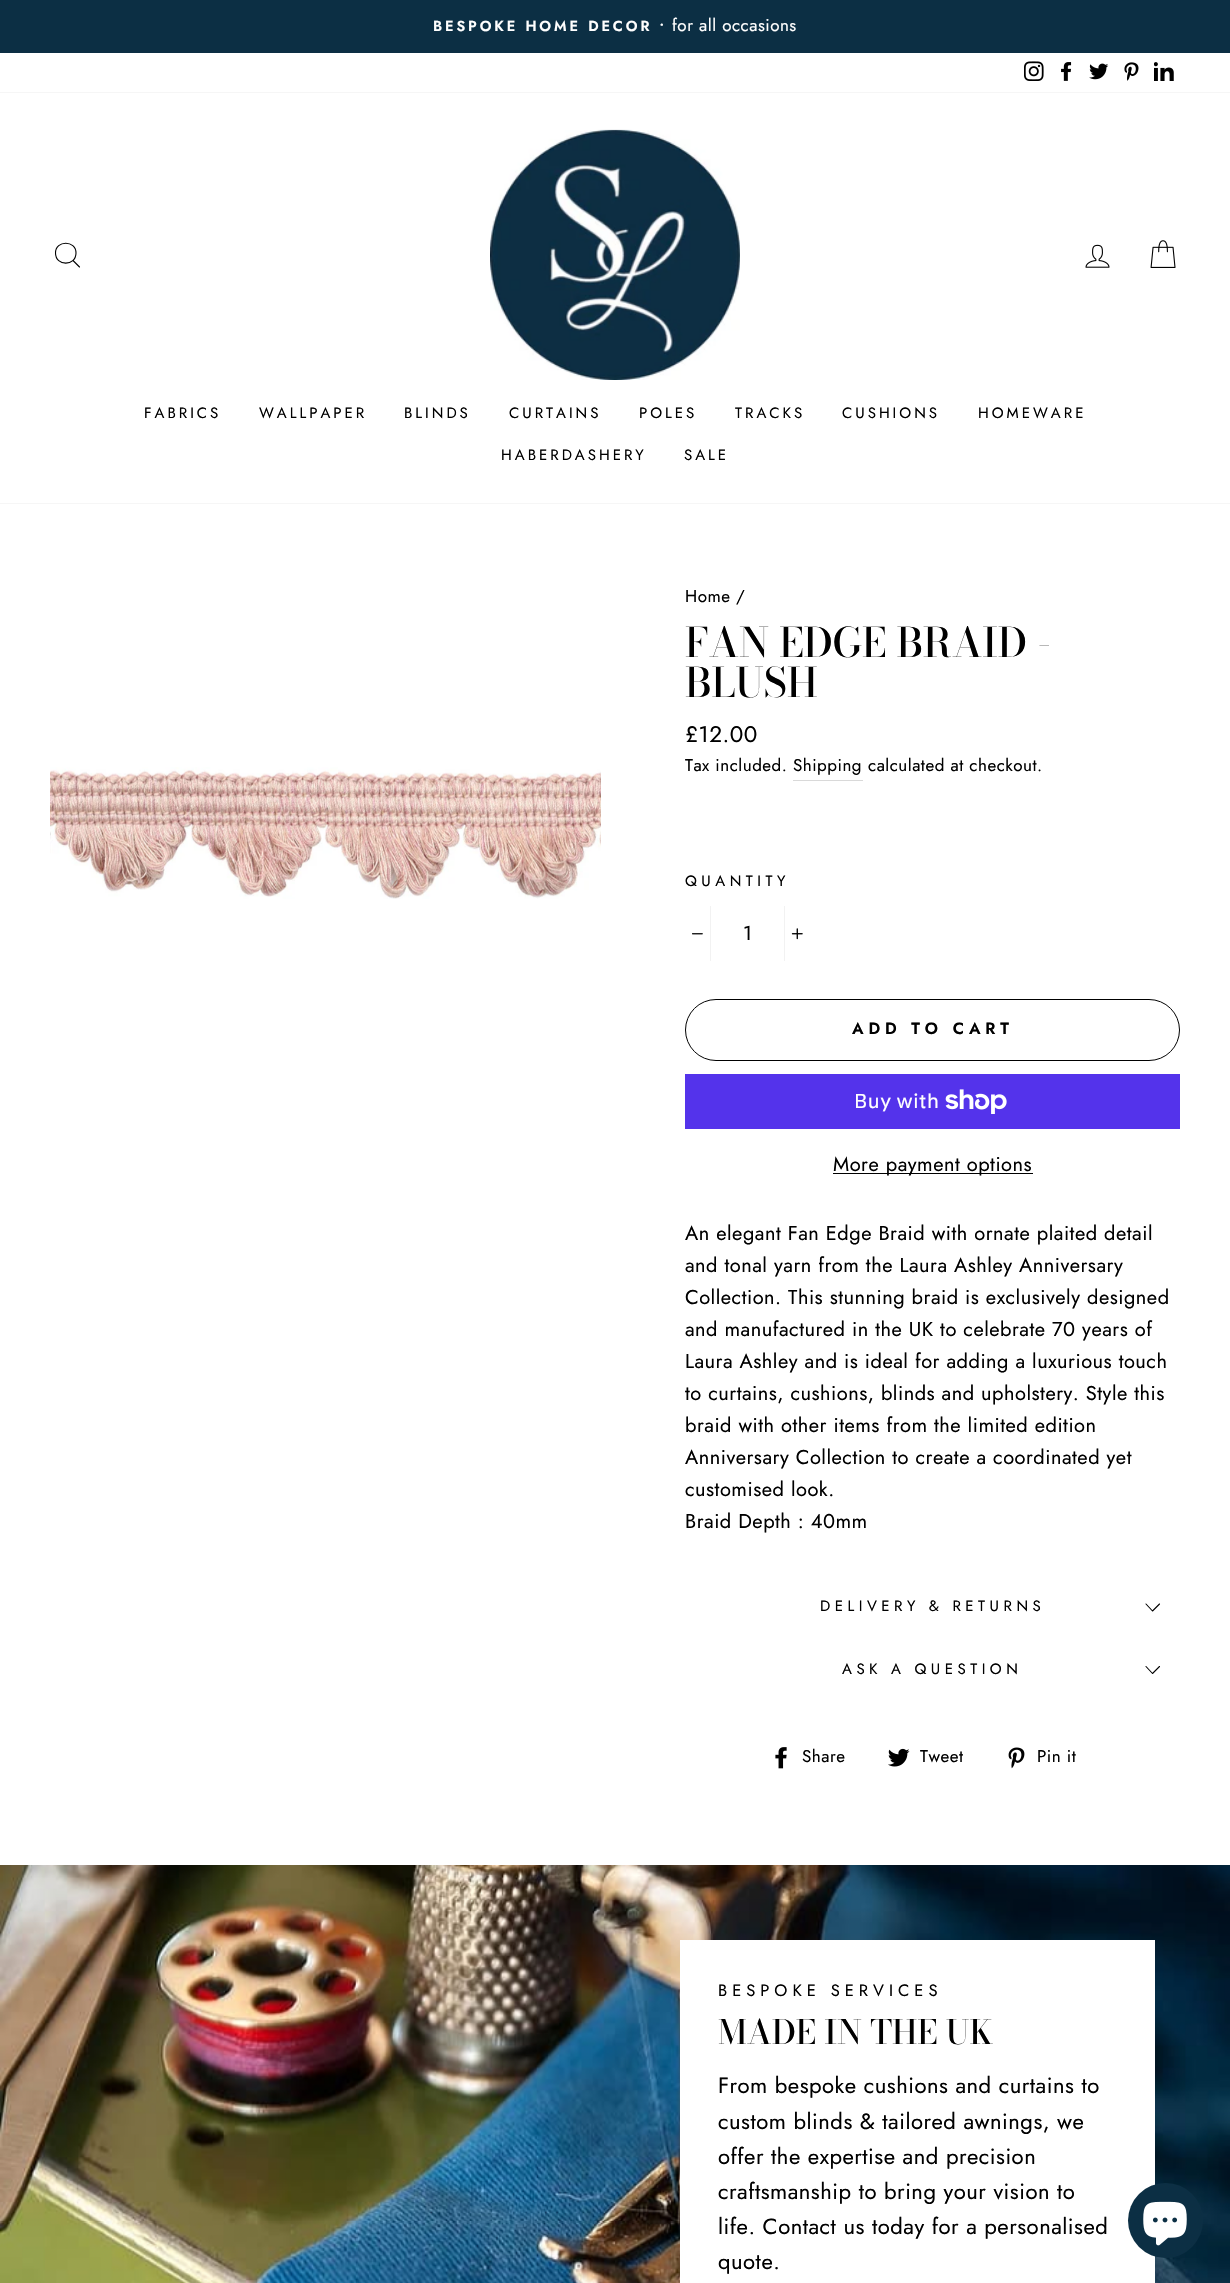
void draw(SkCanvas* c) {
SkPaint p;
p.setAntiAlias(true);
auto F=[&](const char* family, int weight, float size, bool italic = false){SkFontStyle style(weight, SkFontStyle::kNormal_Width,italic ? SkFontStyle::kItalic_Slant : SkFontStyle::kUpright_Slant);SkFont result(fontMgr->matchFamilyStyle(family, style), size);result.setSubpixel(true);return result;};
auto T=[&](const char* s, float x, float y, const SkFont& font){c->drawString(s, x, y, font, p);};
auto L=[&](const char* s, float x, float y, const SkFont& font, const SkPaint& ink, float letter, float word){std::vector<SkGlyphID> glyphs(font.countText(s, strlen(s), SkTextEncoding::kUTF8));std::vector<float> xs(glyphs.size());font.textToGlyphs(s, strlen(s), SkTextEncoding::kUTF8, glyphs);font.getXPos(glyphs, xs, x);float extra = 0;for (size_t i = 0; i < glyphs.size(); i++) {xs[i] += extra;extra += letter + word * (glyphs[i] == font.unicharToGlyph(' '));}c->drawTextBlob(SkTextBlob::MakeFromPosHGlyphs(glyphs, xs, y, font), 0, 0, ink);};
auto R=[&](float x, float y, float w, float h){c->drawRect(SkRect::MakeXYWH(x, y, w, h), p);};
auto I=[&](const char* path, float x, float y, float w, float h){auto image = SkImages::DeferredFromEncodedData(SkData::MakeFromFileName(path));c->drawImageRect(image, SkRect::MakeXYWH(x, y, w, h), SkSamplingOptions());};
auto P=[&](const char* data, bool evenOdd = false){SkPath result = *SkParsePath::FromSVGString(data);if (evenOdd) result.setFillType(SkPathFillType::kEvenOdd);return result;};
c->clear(0xffffffff);
p.setColor(0xff0c2f44);
R(0,0,1230,53);
auto f1 = F("Jost",600,14.5);
p.setColor(0xffffffff);
L("BESPOKE HOME DECOR •",433,31,f1,p,2.9,0);
auto f2 = F("Jost",400,17);
L("for all occasions",672,31,f2,p,.5,0);
I("1.png",1024,61,20,20);
I("2.png",1061,62,11,19);
I("3.png",1089,63,20,17);
I("4.png",1124,62,15,19);
I("5.png",1154,62,20,19);
p.setColor(0x33000000);
p.setMaskFilter(SkMaskFilter::MakeBlur(kNormal_SkBlurStyle, .5));
c->drawRect(SkRect::MakeXYWH(0,93,1230,410),p);
p.setMaskFilter(nullptr);
p.setColor(0xffffffff);
R(0,93,1230,410);
p.setStroke(true);
p.setStrokeWidth(1.1);
p.setStrokeCap(SkPaint::kRound_Cap);
p.setStrokeJoin(SkPaint::kRound_Join);
p.setColor(0xff000000);
c->drawPath(P("M76 253c0 13.5-20.5 13.5-20.5 0c0-13 20.5-13 20.5 0zm3.5 14l-6.5-6.5"),p);
I("6.png",490,129,250,251);
I("7.png",1085,244,25,24);
I("8.png",1150,240,26,28);
auto f3 = F("Jost",400,15);
p.setStroke(false);
L("FABRICS",144,418,f3,p,3,0);
L("WALLPAPER",259,418,f3,p,3,0);
L("BLINDS",404,418,f3,p,3,0);
L("CURTAINS",509,418,f3,p,3,0);
L("POLES",639,418,f3,p,3,0);
L("TRACKS",735,418,f3,p,3,0);
L("CUSHIONS",842,418,f3,p,3,0);
L("HOMEWARE",978,418,f3,p,3,0);
L("HABERDASHERY",501,460,f3,p,3,0);
L("SALE",684,460,f3,p,3,0);
I("9.png",50,767,551,132);
L("Home /",685,602,f2,p,.5,0);
auto f4 = F("Bodoni Moda",500,40.4);
T("FAN EDGE BRAID -",685,657,f4);
T("BLUSH",685,697,f4);
auto f5 = F("Jost",400,22.5);
L("£12.00",685,742,f5,p,.5,0);
L("Tax included. Shipping",685,771,f2,p,.5,0);
L("calculated at checkout.",868,771,f2,p,.5,0);
p.setColor(0xffd9d9d9);
R(793,780,70,1);
p.setColor(0xff000000);
L("QUANTITY",685,886,f3,p,4.5,0);
p.setColor(0xfff2f2f2);
R(710,906,1,55);
I("10.png",692,933,11,2);
auto f6 = F("Jost",400,20);
p.setColor(0xff000000);
L("1",743,940,f6,p,.5,0);
p.setColor(0xfff2f2f2);
R(784,906,1,55);
I("11.png",791,928,12,12);
p.setStroke(true);
p.setStrokeWidth(1);
p.setStrokeCap(SkPaint::kButt_Cap);
p.setStrokeJoin(SkPaint::kMiter_Join);
p.setColor(0xff000000);
c->drawRoundRect(SkRect::MakeXYWH(685.5,999.5,494,61),30.5,30.5,p);
auto f7 = F("Jost",600,16.25);
p.setStroke(false);
L("ADD TO CART",852,1034,f7,p,4.9,0);
p.setColor(0xff5433eb);
R(685,1074,495,55);
auto f8 = F("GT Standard",400,20);
p.setColor(0xffffffff);
L("Buy with",854,1108,f8,p,.5,0);
I("12.png",945,1089,62,25);
p.setColor(0xff000000);
R(833,1173,200,1);
L("More payment options",833,1171,f6,p,.5,0);
L("An elegant Fan Edge Braid with ornate plaited detail",685,1240,f6,p,.5,0);
L("and tonal yarn from the Laura Ashley Anniversary",685,1272,f6,p,.5,0);
L("Collection. This stunning braid is exclusively designed",685,1304,f6,p,.5,0);
L("and manufactured in the UK to celebrate 70 years of",685,1336,f6,p,.5,0);
L("Laura Ashley and is ideal for adding a luxurious touch",685,1368,f6,p,.5,0);
L("to curtains, cushions, blinds and upholstery. Style this",685,1400,f6,p,.5,0);
L("braid with other items from the limited edition",685,1432,f6,p,.5,0);
L("Anniversary Collection to create a coordinated yet",685,1464,f6,p,.5,0);
L("customised look.",685,1496,f6,p,.5,0);
L("Braid Depth : 40mm",685,1528,f6,p,.5,0);
L("DELIVERY & RETURNS",820,1611,f3,p,4.5,0);
p.setStroke(true);
p.setStrokeWidth(1.1);
p.setStrokeCap(SkPaint::kRound_Cap);
p.setStrokeJoin(SkPaint::kRound_Join);
c->drawPath(P("M1146 1604l6.5 7l7-7"),p);
p.setStroke(false);
L("ASK A QUESTION",842,1674,f3,p,4.5,0);
p.setStroke(true);
c->drawPath(P("M1146 1666.5l6.5 7l7-7"),p);
I("13.png",775,1747,12,22);
p.setStroke(false);
L("Share",802,1762,f2,p,.5,0);
I("14.png",888,1748,22,19);
L("Tweet",920,1762,f2,p,.5,0);
I("15.png",1008,1747,17,22);
L("Pin it",1037,1762,f2,p,.5,0);
I("16.png",0,1865,1230,418);
p.setColor(0xffffffff);
R(680,1940,475,343);
auto f9 = F("Jost",400,16.5);
p.setColor(0xff000000);
L("BESPOKE SERVICES",718,1996,f9,p,5,0);
auto f10 = F("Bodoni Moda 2",500,33.25);
T("MADE IN THE UK",718,2044,f10);
auto f11 = F("Jost",400,22);
L("From bespoke cushions and curtains to",718,2093,f11,p,.5,0);
L("custom blinds & tailored awnings, we",718,2129,f11,p,.5,0);
L("offer the expertise and precision",718,2164,f11,p,.5,0);
L("craftsmanship to bring your vision to",718,2199,f11,p,.5,0);
L("life. Contact us today for a personalised",718,2234,f11,p,.5,0);
L("quote.",718,2269,f11,p,.5,0);
p.setColor(0xff0c2f44);
c->drawCircle(1165.5,2220.5,37.5,p);
I("17.png",1143,2201,44,45);
}
